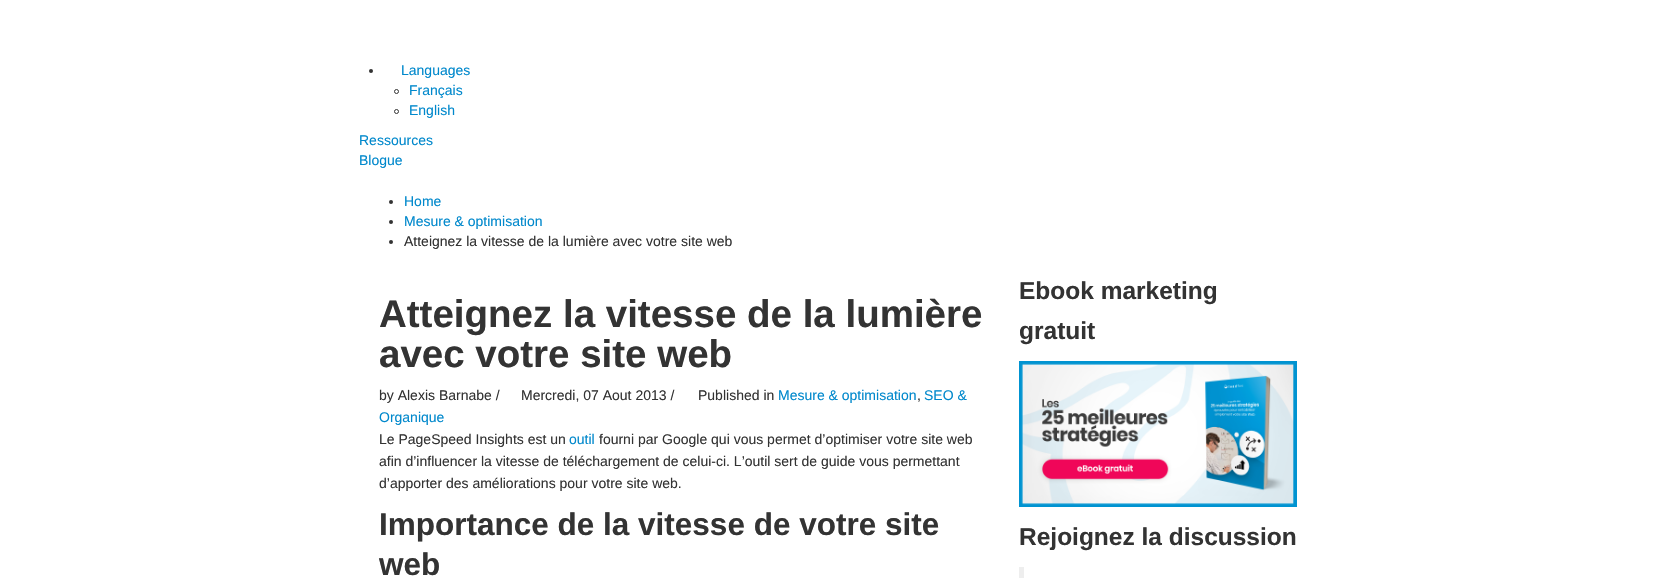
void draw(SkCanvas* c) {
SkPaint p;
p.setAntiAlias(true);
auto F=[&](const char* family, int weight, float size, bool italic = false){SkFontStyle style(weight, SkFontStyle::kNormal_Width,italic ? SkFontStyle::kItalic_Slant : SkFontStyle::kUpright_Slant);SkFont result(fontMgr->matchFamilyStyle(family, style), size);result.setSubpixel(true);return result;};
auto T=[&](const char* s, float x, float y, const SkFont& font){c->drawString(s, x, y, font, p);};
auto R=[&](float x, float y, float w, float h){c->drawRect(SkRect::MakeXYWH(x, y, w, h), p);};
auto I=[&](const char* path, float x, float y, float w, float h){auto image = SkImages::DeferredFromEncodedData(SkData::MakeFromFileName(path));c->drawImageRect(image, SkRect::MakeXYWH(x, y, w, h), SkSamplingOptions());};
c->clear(0xffffffff);
p.setColor(0xff333333);
c->drawCircle(371,71,2,p);
auto f1 = F("Liberation Sans",400,14);
p.setColor(0xff0088cc);
T("Languages",401,75,f1);
p.setStroke(true);
p.setStrokeWidth(1);
p.setColor(0xff333333);
c->drawCircle(396.5,91.5,2,p);
p.setStroke(false);
p.setColor(0xff0088cc);
T("Français",409,95,f1);
p.setStroke(true);
p.setColor(0xff333333);
c->drawCircle(396.5,111.5,2,p);
p.setStroke(false);
p.setColor(0xff0088cc);
T("English",409,115,f1);
T("Ressources",359,145,f1);
T("Blogue",359,165,f1);
p.setColor(0xff333333);
c->drawCircle(391,202,2,p);
p.setColor(0xff0088cc);
T("Home",404,206,f1);
p.setColor(0xff333333);
c->drawCircle(391,222,2,p);
p.setColor(0xff0088cc);
T("Mesure & optimisation",404,226,f1);
p.setColor(0xff333333);
c->drawCircle(391,242,2,p);
T("Atteignez la vitesse de la lumière avec votre site web",404,246,f1);
auto f2 = F("Liberation Sans",700,38.5);
T("Atteignez la vitesse de la lumière",379,327,f2);
T("avec votre site web",379,367,f2);
T("by Alexis Barnabe /",379,400,f1);
T("Mercredi, 07 Aout 2013 /",521,400,f1);
T("Published in",698,400,f1);
p.setColor(0xff0088cc);
T("Mesure & optimisation",778,400,f1);
p.setColor(0xff333333);
T(",",917,400,f1);
p.setColor(0xff0088cc);
T("SEO &",924,400,f1);
T("Organique",379,422,f1);
p.setColor(0xff333333);
T("Le PageSpeed Insights est un",379,444,f1);
p.setColor(0xff0088cc);
T("outil",569,444,f1);
p.setColor(0xff333333);
T("fourni par Google qui vous permet d’optimiser votre site web",599,444,f1);
T("afin d’influencer la vitesse de téléchargement de celui-ci. L’outil sert de guide vous permettant",379,466,f1);
T("d’apporter des améliorations pour votre site web.",379,488,f1);
auto f3 = F("Liberation Sans",700,31.5);
T("Importance de la vitesse de votre site",379,535,f3);
T("web",379,575,f3);
auto f4 = F("Liberation Sans",700,24.5);
T("Ebook marketing",1019,299,f4);
T("gratuit",1019,339,f4);
I("1.png",1019,361,278,146);
T("Rejoignez la discussion",1019,545,f4);
p.setColor(0xffeeeeee);
R(1019,567,5,11);
}
